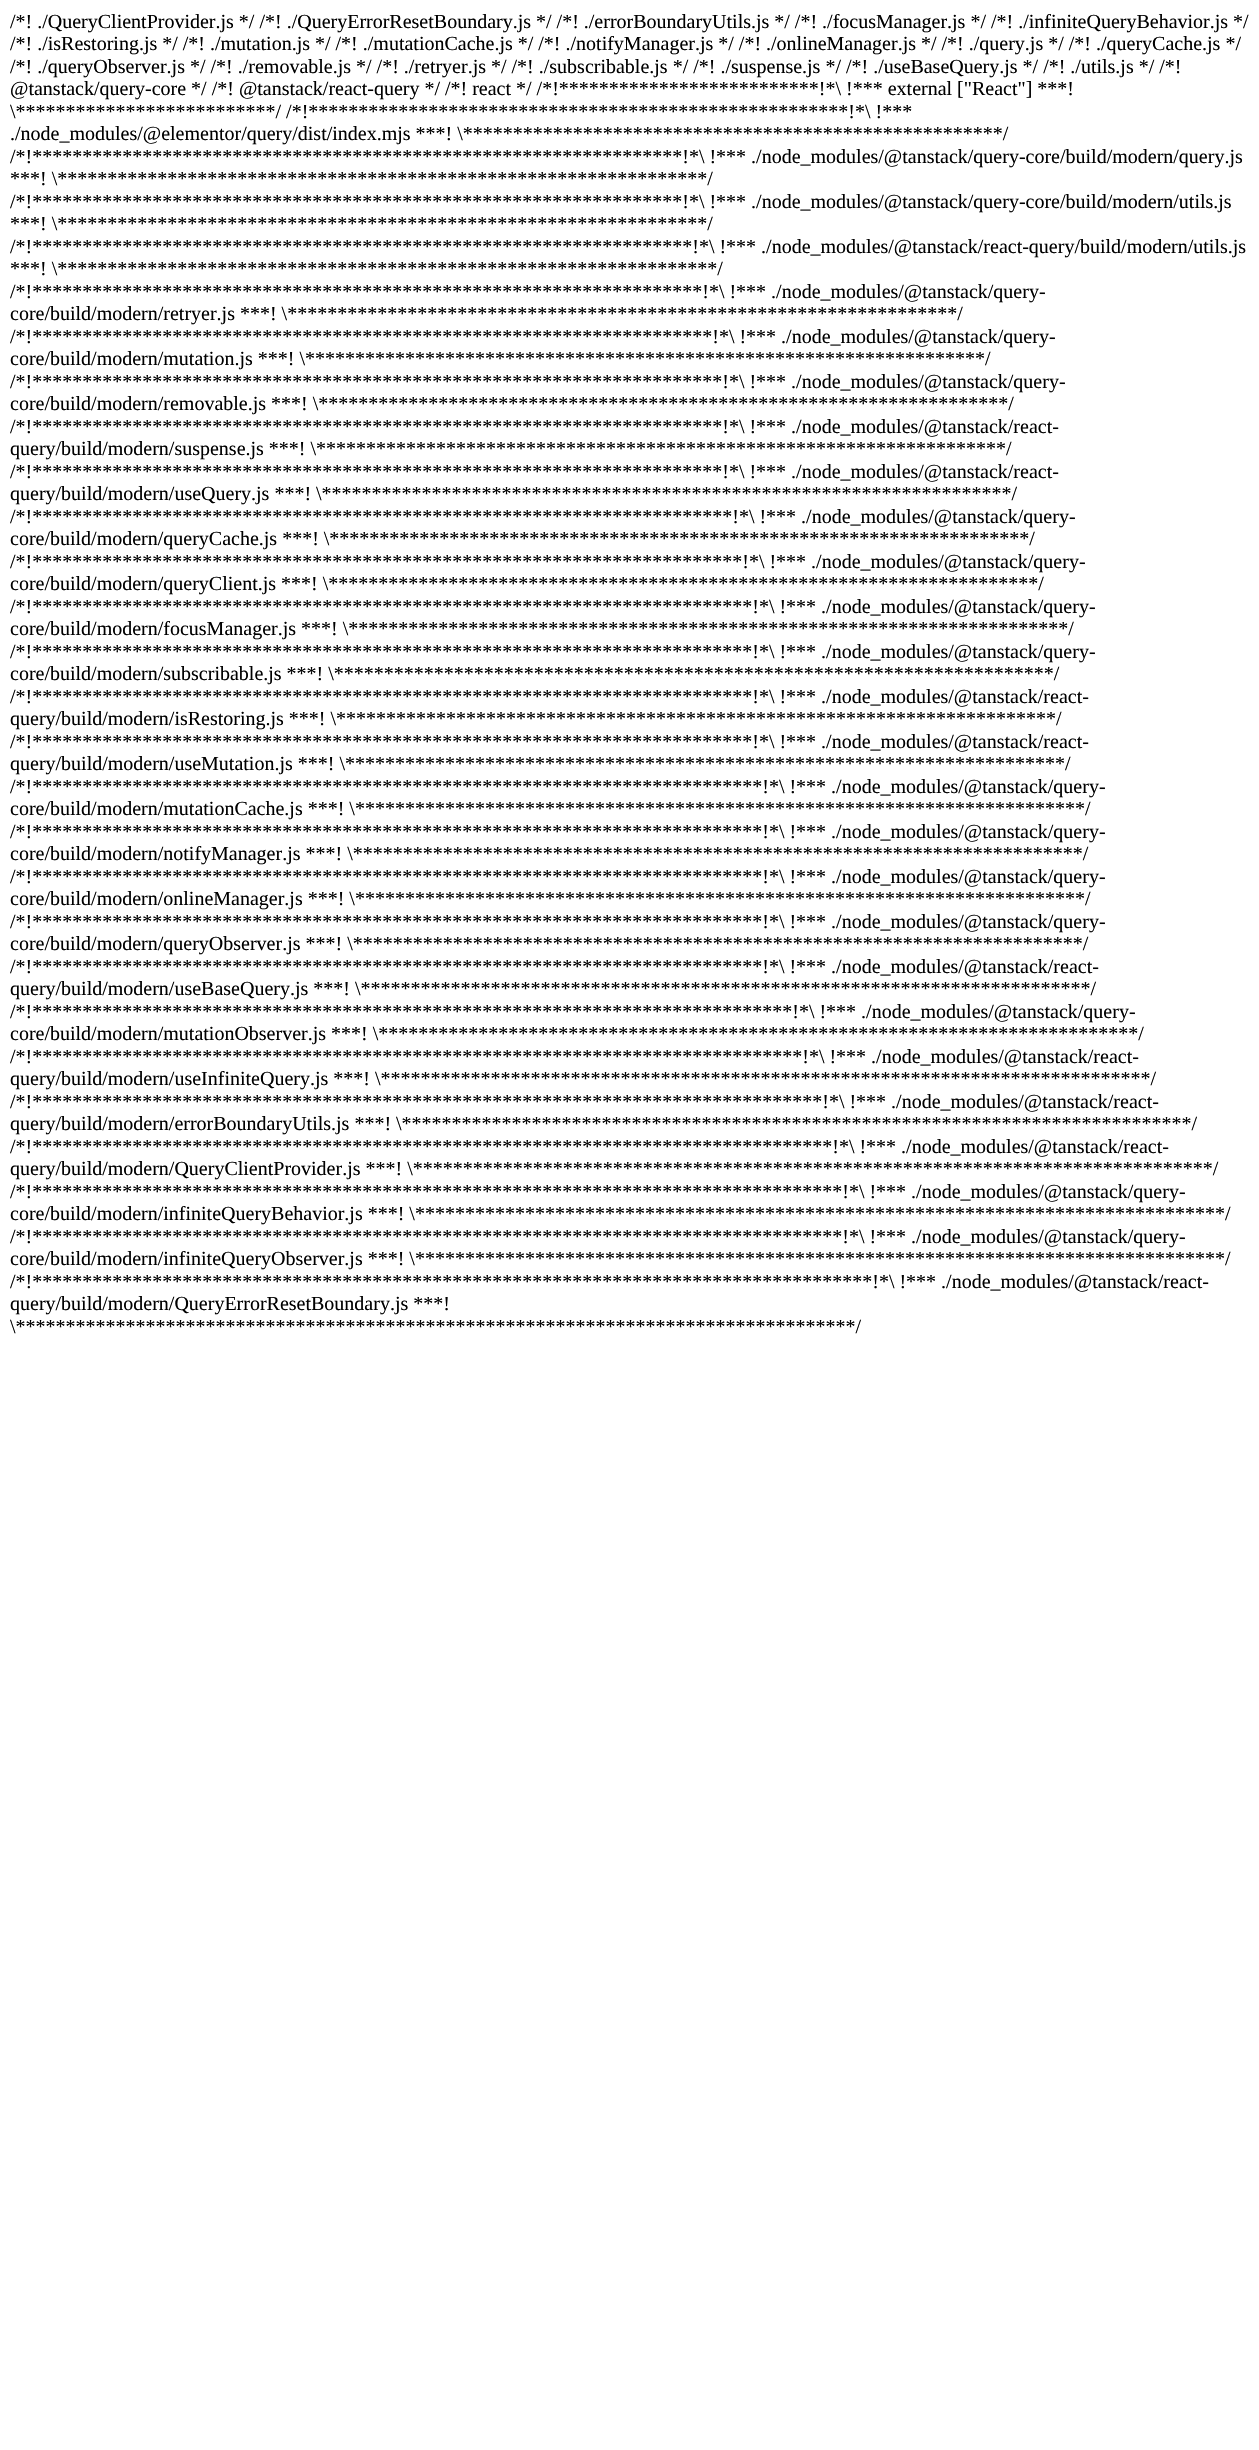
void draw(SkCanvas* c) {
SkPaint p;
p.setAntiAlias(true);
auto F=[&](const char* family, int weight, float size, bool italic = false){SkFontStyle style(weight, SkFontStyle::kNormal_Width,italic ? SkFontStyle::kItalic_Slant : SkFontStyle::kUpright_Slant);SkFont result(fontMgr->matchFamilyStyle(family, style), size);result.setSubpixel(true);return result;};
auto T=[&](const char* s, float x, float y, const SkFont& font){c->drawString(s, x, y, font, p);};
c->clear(0xffffffff);
auto f1 = F("Liberation Serif",400,20);
p.setColor(0xff000000);
T("/*! ./QueryClientProvider.js */ /*! ./QueryErrorResetBoundary.js */ /*! ./errorBoundaryUtils.js */ /*! ./focusManager.js */ /*! ./infiniteQueryBehavior.js */",10,28,f1);
T("/*! ./isRestoring.js */ /*! ./mutation.js */ /*! ./mutationCache.js */ /*! ./notifyManager.js */ /*! ./onlineManager.js */ /*! ./query.js */ /*! ./queryCache.js */",10,50,f1);
T("/*! ./queryObserver.js */ /*! ./removable.js */ /*! ./retryer.js */ /*! ./subscribable.js */ /*! ./suspense.js */ /*! ./useBaseQuery.js */ /*! ./utils.js */ /*!",10,73,f1);
T("@tanstack/query-core */ /*! @tanstack/react-query */ /*! react */ /*!**************************!*\\ !*** external [\"React\"] ***!",10,95,f1);
T("\\**************************/ /*!******************************************************!*\\ !***",10,118,f1);
T("./node_modules/@elementor/query/dist/index.mjs ***! \\******************************************************/",10,140,f1);
T("/*!*****************************************************************!*\\ !*** ./node_modules/@tanstack/query-core/build/modern/query.js",10,163,f1);
T("***! \\*****************************************************************/",10,185,f1);
T("/*!*****************************************************************!*\\ !*** ./node_modules/@tanstack/query-core/build/modern/utils.js",10,208,f1);
T("***! \\*****************************************************************/",10,230,f1);
T("/*!******************************************************************!*\\ !*** ./node_modules/@tanstack/react-query/build/modern/utils.js",10,253,f1);
T("***! \\******************************************************************/",10,275,f1);
T("/*!*******************************************************************!*\\ !*** ./node_modules/@tanstack/query-",10,298,f1);
T("core/build/modern/retryer.js ***! \\*******************************************************************/",10,320,f1);
T("/*!********************************************************************!*\\ !*** ./node_modules/@tanstack/query-",10,343,f1);
T("core/build/modern/mutation.js ***! \\********************************************************************/",10,365,f1);
T("/*!*********************************************************************!*\\ !*** ./node_modules/@tanstack/query-",10,388,f1);
T("core/build/modern/removable.js ***! \\*********************************************************************/",10,410,f1);
T("/*!*********************************************************************!*\\ !*** ./node_modules/@tanstack/react-",10,433,f1);
T("query/build/modern/suspense.js ***! \\*********************************************************************/",10,455,f1);
T("/*!*********************************************************************!*\\ !*** ./node_modules/@tanstack/react-",10,478,f1);
T("query/build/modern/useQuery.js ***! \\*********************************************************************/",10,500,f1);
T("/*!**********************************************************************!*\\ !*** ./node_modules/@tanstack/query-",10,523,f1);
T("core/build/modern/queryCache.js ***! \\**********************************************************************/",10,545,f1);
T("/*!***********************************************************************!*\\ !*** ./node_modules/@tanstack/query-",10,568,f1);
T("core/build/modern/queryClient.js ***! \\***********************************************************************/",10,590,f1);
T("/*!************************************************************************!*\\ !*** ./node_modules/@tanstack/query-",10,613,f1);
T("core/build/modern/focusManager.js ***! \\************************************************************************/",10,635,f1);
T("/*!************************************************************************!*\\ !*** ./node_modules/@tanstack/query-",10,658,f1);
T("core/build/modern/subscribable.js ***! \\************************************************************************/",10,680,f1);
T("/*!************************************************************************!*\\ !*** ./node_modules/@tanstack/react-",10,703,f1);
T("query/build/modern/isRestoring.js ***! \\************************************************************************/",10,725,f1);
T("/*!************************************************************************!*\\ !*** ./node_modules/@tanstack/react-",10,748,f1);
T("query/build/modern/useMutation.js ***! \\************************************************************************/",10,770,f1);
T("/*!*************************************************************************!*\\ !*** ./node_modules/@tanstack/query-",10,793,f1);
T("core/build/modern/mutationCache.js ***! \\*************************************************************************/",10,815,f1);
T("/*!*************************************************************************!*\\ !*** ./node_modules/@tanstack/query-",10,838,f1);
T("core/build/modern/notifyManager.js ***! \\*************************************************************************/",10,860,f1);
T("/*!*************************************************************************!*\\ !*** ./node_modules/@tanstack/query-",10,883,f1);
T("core/build/modern/onlineManager.js ***! \\*************************************************************************/",10,905,f1);
T("/*!*************************************************************************!*\\ !*** ./node_modules/@tanstack/query-",10,928,f1);
T("core/build/modern/queryObserver.js ***! \\*************************************************************************/",10,950,f1);
T("/*!*************************************************************************!*\\ !*** ./node_modules/@tanstack/react-",10,973,f1);
T("query/build/modern/useBaseQuery.js ***! \\*************************************************************************/",10,995,f1);
T("/*!****************************************************************************!*\\ !*** ./node_modules/@tanstack/query-",10,1018,f1);
T("core/build/modern/mutationObserver.js ***! \\****************************************************************************/",10,1040,f1);
T("/*!*****************************************************************************!*\\ !*** ./node_modules/@tanstack/react-",10,1063,f1);
T("query/build/modern/useInfiniteQuery.js ***! \\*****************************************************************************/",10,1085,f1);
T("/*!*******************************************************************************!*\\ !*** ./node_modules/@tanstack/react-",10,1108,f1);
T("query/build/modern/errorBoundaryUtils.js ***! \\*******************************************************************************/",10,1130,f1);
T("/*!********************************************************************************!*\\ !*** ./node_modules/@tanstack/react-",10,1153,f1);
T("query/build/modern/QueryClientProvider.js ***! \\********************************************************************************/",10,1175,f1);
T("/*!*********************************************************************************!*\\ !*** ./node_modules/@tanstack/query-",10,1198,f1);
T("core/build/modern/infiniteQueryBehavior.js ***! \\*********************************************************************************/",10,1220,f1);
T("/*!*********************************************************************************!*\\ !*** ./node_modules/@tanstack/query-",10,1243,f1);
T("core/build/modern/infiniteQueryObserver.js ***! \\*********************************************************************************/",10,1265,f1);
T("/*!************************************************************************************!*\\ !*** ./node_modules/@tanstack/react-",10,1288,f1);
T("query/build/modern/QueryErrorResetBoundary.js ***!",10,1310,f1);
T("\\************************************************************************************/",10,1333,f1);
}
